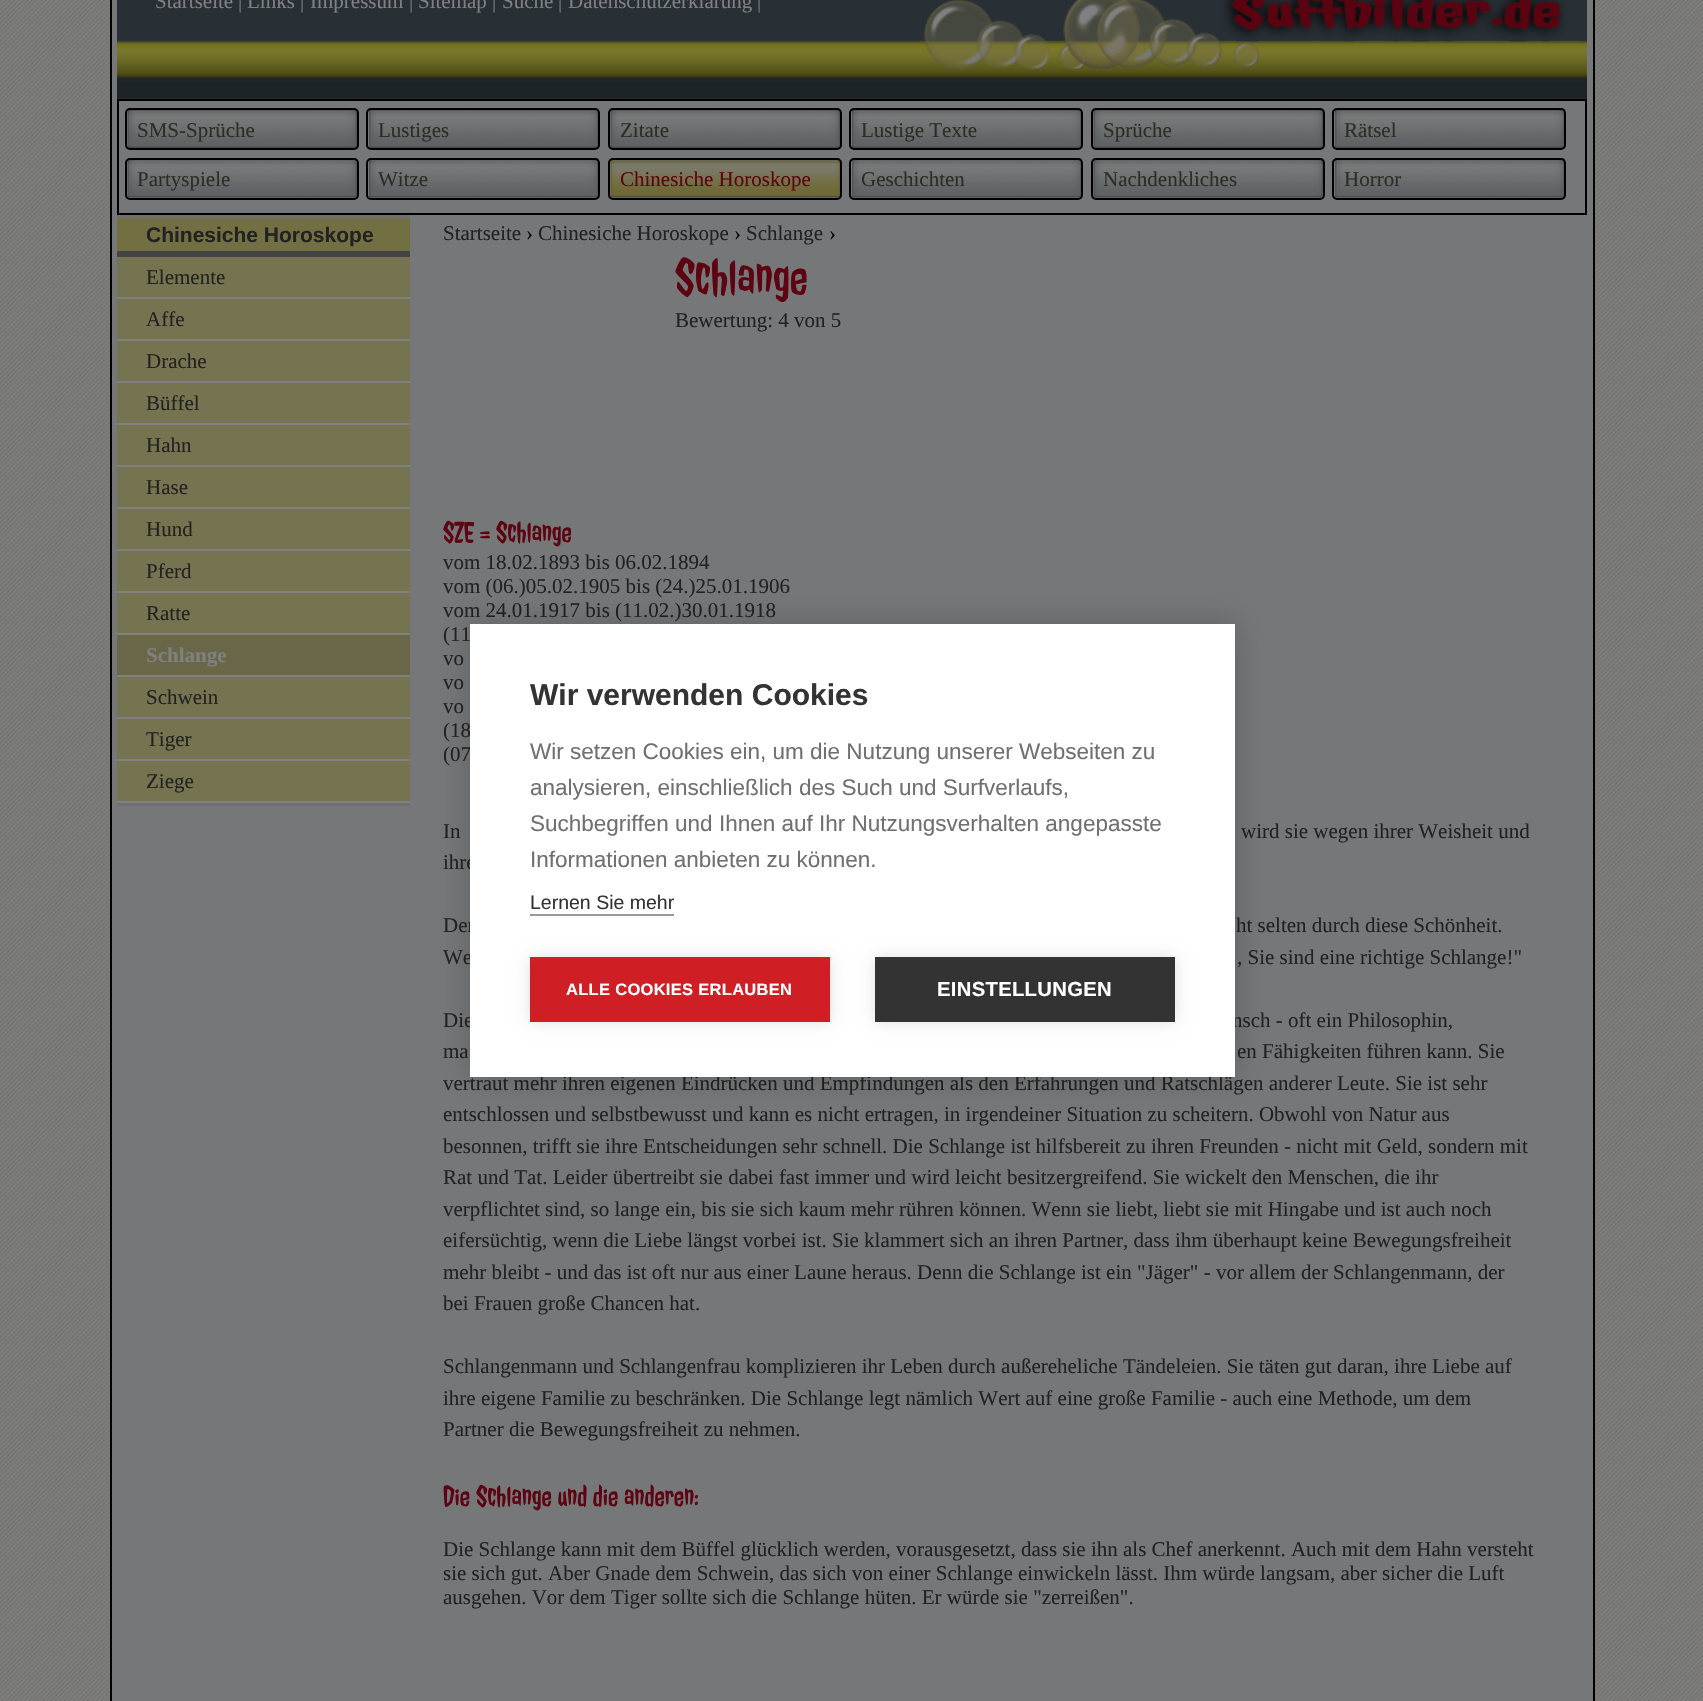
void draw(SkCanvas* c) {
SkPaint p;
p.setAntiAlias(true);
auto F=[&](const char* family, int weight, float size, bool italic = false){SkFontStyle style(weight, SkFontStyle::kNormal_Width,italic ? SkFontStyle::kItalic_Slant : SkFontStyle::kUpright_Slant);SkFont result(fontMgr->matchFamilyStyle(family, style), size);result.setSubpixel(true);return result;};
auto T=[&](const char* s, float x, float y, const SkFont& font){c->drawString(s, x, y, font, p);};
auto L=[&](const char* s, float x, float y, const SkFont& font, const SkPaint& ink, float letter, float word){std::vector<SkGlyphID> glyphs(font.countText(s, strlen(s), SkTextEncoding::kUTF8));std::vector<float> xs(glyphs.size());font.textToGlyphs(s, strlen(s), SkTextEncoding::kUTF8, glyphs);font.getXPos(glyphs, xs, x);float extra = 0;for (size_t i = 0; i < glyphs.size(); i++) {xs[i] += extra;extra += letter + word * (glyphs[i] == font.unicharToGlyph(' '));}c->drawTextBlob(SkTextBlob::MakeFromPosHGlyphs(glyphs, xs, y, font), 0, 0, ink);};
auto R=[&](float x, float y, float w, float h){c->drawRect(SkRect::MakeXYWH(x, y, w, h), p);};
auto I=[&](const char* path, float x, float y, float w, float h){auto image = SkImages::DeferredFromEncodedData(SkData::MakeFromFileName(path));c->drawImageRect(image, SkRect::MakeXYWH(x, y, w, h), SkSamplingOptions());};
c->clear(0xffffffff);
I("1.png",0,0,1703,1701);
p.setColor(0xff767778);
c->drawRect(SkRect::MakeXYWH(111,-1,1483,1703),p);
p.setStroke(true);
p.setStrokeWidth(2);
p.setColor(0xff000000);
c->drawRect(SkRect::MakeXYWH(111,-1,1483,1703),p);
p.setStroke(false);
p.setColor(0xff283035);
R(117,0,1470,99);
I("2.png",117,40,1470,59);
I("3.png",919,0,662,80);
auto f1 = F("Liberation Serif",400,21);
p.setColor(0xff808080);
T("Startseite",155,8,f1);
p.setColor(0xff767778);
T("|",238,8,f1);
p.setColor(0xff808080);
T("Links",247,8,f1);
p.setColor(0xff767778);
T("|",300,8,f1);
p.setColor(0xff808080);
T("Impressum",310,8,f1);
p.setColor(0xff767778);
T("|",409,8,f1);
p.setColor(0xff808080);
T("Sitemap",418,8,f1);
p.setColor(0xff767778);
T("|",492,8,f1);
p.setColor(0xff808080);
T("Suche",502,8,f1);
p.setColor(0xff767778);
T("|",558,8,f1);
p.setColor(0xff808080);
T("Datenschutzerklärung",568,8,f1);
p.setColor(0xff767778);
T("|",757,8,f1);
p.setStroke(true);
p.setColor(0xff000000);
c->drawRect(SkRect::MakeXYWH(118,100,1468,114),p);
I("4.png",127,110,230,38);
c->drawRoundRect(SkRect::MakeXYWH(126,109,232,40),4,4,p);
p.setStroke(false);
p.setColor(0xff2b2d26);
T("SMS-Sprüche",137,137,f1);
I("5.png",369,109,230,39);
p.setStroke(true);
p.setColor(0xff000000);
c->drawRoundRect(SkRect::MakeXYWH(367,109,232,40),4,4,p);
p.setStroke(false);
p.setColor(0xff2b2d26);
T("Lustiges",378,137,f1);
I("6.png",610,110,230,38);
p.setStroke(true);
p.setColor(0xff000000);
c->drawRoundRect(SkRect::MakeXYWH(609,109,232,40),4,4,p);
p.setStroke(false);
p.setColor(0xff2b2d26);
T("Zitate",620,137,f1);
I("7.png",852,109,230,39);
p.setStroke(true);
p.setColor(0xff000000);
c->drawRoundRect(SkRect::MakeXYWH(850,109,232,40),4,4,p);
p.setStroke(false);
p.setColor(0xff2b2d26);
T("Lustige Texte",861,137,f1);
I("8.png",1093,110,230,38);
p.setStroke(true);
p.setColor(0xff000000);
c->drawRoundRect(SkRect::MakeXYWH(1092,109,232,40),4,4,p);
p.setStroke(false);
p.setColor(0xff2b2d26);
T("Sprüche",1103,137,f1);
I("9.png",1335,109,230,39);
p.setStroke(true);
p.setColor(0xff000000);
c->drawRoundRect(SkRect::MakeXYWH(1333,109,232,40),4,4,p);
p.setStroke(false);
p.setColor(0xff2b2d26);
T("Rätsel",1344,137,f1);
I("10.png",127,158,230,40);
p.setStroke(true);
p.setColor(0xff000000);
c->drawRoundRect(SkRect::MakeXYWH(126,159,232,40),4,4,p);
p.setStroke(false);
p.setColor(0xff2b2d26);
T("Partyspiele",137,186,f1);
I("11.png",369,158,230,40);
p.setStroke(true);
p.setColor(0xff000000);
c->drawRoundRect(SkRect::MakeXYWH(367,159,232,40),4,4,p);
p.setStroke(false);
p.setColor(0xff2b2d26);
T("Witze",378,186,f1);
I("12.png",610,158,230,40);
p.setStroke(true);
p.setColor(0xff000000);
c->drawRoundRect(SkRect::MakeXYWH(609,159,232,40),4,4,p);
p.setStroke(false);
p.setColor(0xff5d0312);
T("Chinesiche Horoskope",620,186,f1);
I("13.png",852,158,230,40);
p.setStroke(true);
p.setColor(0xff000000);
c->drawRoundRect(SkRect::MakeXYWH(850,159,232,40),4,4,p);
p.setStroke(false);
p.setColor(0xff2b2d26);
T("Geschichten",861,186,f1);
I("14.png",1093,158,230,40);
p.setStroke(true);
p.setColor(0xff000000);
c->drawRoundRect(SkRect::MakeXYWH(1092,159,232,40),4,4,p);
p.setStroke(false);
p.setColor(0xff2b2d26);
T("Nachdenkliches",1103,186,f1);
I("15.png",1335,158,230,40);
p.setStroke(true);
p.setColor(0xff000000);
c->drawRoundRect(SkRect::MakeXYWH(1333,159,232,40),4,4,p);
p.setStroke(false);
p.setColor(0xff2b2d26);
T("Horror",1344,186,f1);
p.setColor(0xff726f42);
R(117,218,293,33);
p.setColor(0xff6f6f6f);
R(117,215,293,3);
auto f2 = F("Liberation Sans",700,21);
p.setColor(0xff222222);
T("Chinesiche Horoskope",146,242,f2);
p.setColor(0xff444444);
R(117,251,293,6);
p.setColor(0xff6f6f6f);
R(117,803,293,3);
p.setColor(0xff767350);
R(117,257,293,40);
p.setColor(0xff808080);
R(117,297,293,2);
p.setColor(0xff222222);
T("Elemente",146,284,f1);
p.setColor(0xff767350);
R(117,299,293,40);
p.setColor(0xff808080);
R(117,339,293,2);
p.setColor(0xff222222);
T("Affe",146,326,f1);
p.setColor(0xff767350);
R(117,341,293,40);
p.setColor(0xff808080);
R(117,381,293,2);
p.setColor(0xff222222);
T("Drache",146,368,f1);
p.setColor(0xff767350);
R(117,383,293,40);
p.setColor(0xff808080);
R(117,423,293,2);
p.setColor(0xff222222);
T("Büffel",146,410,f1);
p.setColor(0xff767350);
R(117,425,293,40);
p.setColor(0xff808080);
R(117,465,293,2);
p.setColor(0xff222222);
T("Hahn",146,452,f1);
p.setColor(0xff767350);
R(117,467,293,40);
p.setColor(0xff808080);
R(117,507,293,2);
p.setColor(0xff222222);
T("Hase",146,494,f1);
p.setColor(0xff767350);
R(117,509,293,40);
p.setColor(0xff808080);
R(117,549,293,2);
p.setColor(0xff222222);
T("Hund",146,536,f1);
p.setColor(0xff767350);
R(117,551,293,40);
p.setColor(0xff808080);
R(117,591,293,2);
p.setColor(0xff222222);
T("Pferd",146,578,f1);
p.setColor(0xff767350);
R(117,593,293,40);
p.setColor(0xff808080);
R(117,633,293,2);
p.setColor(0xff222222);
T("Ratte",146,620,f1);
p.setColor(0xff6a6748);
R(117,635,293,40);
p.setColor(0xff808080);
R(117,675,293,2);
auto f3 = F("Liberation Serif",700,21);
T("Schlange",146,662,f3);
p.setColor(0xff767350);
R(117,677,293,40);
p.setColor(0xff808080);
R(117,717,293,2);
p.setColor(0xff222222);
T("Schwein",146,704,f1);
p.setColor(0xff767350);
R(117,719,293,40);
p.setColor(0xff808080);
R(117,759,293,2);
p.setColor(0xff222222);
T("Tiger",146,746,f1);
p.setColor(0xff767350);
R(117,761,293,40);
p.setColor(0xff808080);
R(117,801,293,2);
p.setColor(0xff222222);
T("Ziege",146,788,f1);
T("Startseite",443,240,f1);
p.setColor(0xff000000);
T("›",526,240,f1);
p.setColor(0xff222222);
T("Chinesiche Horoskope",538,240,f1);
p.setColor(0xff000000);
T("›",734,240,f1);
p.setColor(0xff222222);
T("Schlange",746,240,f1);
p.setColor(0xff000000);
T("›",829,240,f1);
auto f4 = F("Jolly Lodger",400,52.5);
p.setColor(0xff5d0312);
T("Schlange",675,296,f4);
p.setColor(0xff222222);
T("Bewertung: 4 von 5",675,327,f1);
auto f5 = F("Jolly Lodger",400,30);
p.setColor(0xff5d0312);
T("SZE = Schlange",443,543,f5);
p.setColor(0xff222222);
T("vom 18.02.1893 bis 06.02.1894",443,569,f1);
T("vom (06.)05.02.1905 bis (24.)25.01.1906",443,593,f1);
T("vom 24.01.1917 bis (11.02.)30.01.1918",443,617,f1);
T("(11",443,641,f1);
T("vo",443,665,f1);
T("vo",443,689,f1);
T("vo",443,713,f1);
T("(18",443,737,f1);
T("(07",443,761,f1);
T("In",443,838,f1);
T("wird sie wegen ihrer Weisheit und",1241,838,f1);
T("ihre",443,869,f1);
T("Der",443,932,f1);
T("ht selten durch diese Schönheit.",1236,932,f1);
T("We",443,964,f1);
T(", Sie sind eine richtige Schlange!\"",1237,964,f1);
T("Die",443,1027,f1);
T("nsch - oft ein Philosophin,",1232,1027,f1);
T("ma",443,1058,f1);
T("en Fähigkeiten führen kann. Sie",1237,1058,f1);
T("vertraut mehr ihren eigenen Eindrücken und Empfindungen als den Erfahrungen und Ratschlägen anderer Leute. Sie ist sehr",443,1090,f1);
T("entschlossen und selbstbewusst und kann es nicht ertragen, in irgendeiner Situation zu scheitern. Obwohl von Natur aus",443,1121,f1);
T("besonnen, trifft sie ihre Entscheidungen sehr schnell. Die Schlange ist hilfsbereit zu ihren Freunden - nicht mit Geld, sondern mit",443,1153,f1);
T("Rat und Tat. Leider übertreibt sie dabei fast immer und wird leicht besitzergreifend. Sie wickelt den Menschen, die ihr",443,1184,f1);
T("verpflichtet sind, so lange ein, bis sie sich kaum mehr rühren können. Wenn sie liebt, liebt sie mit Hingabe und ist auch noch",443,1216,f1);
T("eifersüchtig, wenn die Liebe längst vorbei ist. Sie klammert sich an ihren Partner, dass ihm überhaupt keine Bewegungsfreiheit",443,1247,f1);
T("mehr bleibt - und das ist oft nur aus einer Laune heraus. Denn die Schlange ist ein \"Jäger\" - vor allem der Schlangenmann, der",443,1279,f1);
T("bei Frauen große Chancen hat.",443,1310,f1);
T("Schlangenmann und Schlangenfrau komplizieren ihr Leben durch außereheliche Tändeleien. Sie täten gut daran, ihre Liebe auf",443,1373,f1);
T("ihre eigene Familie zu beschränken. Die Schlange legt nämlich Wert auf eine große Familie - auch eine Methode, um dem",443,1405,f1);
T("Partner die Bewegungsfreiheit zu nehmen.",443,1436,f1);
p.setColor(0xff5d0312);
T("Die Schlange und die anderen:",443,1507,f5);
p.setColor(0xff222222);
T("Die Schlange kann mit dem Büffel glücklich werden, vorausgesetzt, dass sie ihn als Chef anerkennt. Auch mit dem Hahn versteht",443,1556,f1);
T("sie sich gut. Aber Gnade dem Schwein, das sich von einer Schlange einwickeln lässt. Ihm würde langsam, aber sicher die Luft",443,1580,f1);
T("ausgehen. Vor dem Tiger sollte sich die Schlange hüten. Er würde sie \"zerreißen\".",443,1604,f1);
p.setColor(0x33000000);
p.setMaskFilter(SkMaskFilter::MakeBlur(kNormal_SkBlurStyle, 15));
c->drawRect(SkRect::MakeXYWH(470,624,765,453),p);
p.setMaskFilter(nullptr);
p.setColor(0xffffffff);
R(470,624,765,453);
auto f6 = F("Liberation Sans",700,30);
p.setColor(0xff333333);
T("Wir verwenden Cookies",530,705,f6);
auto f7 = F("Liberation Sans",400,22.5);
p.setColor(0xff707070);
T("Wir setzen Cookies ein, um die Nutzung unserer Webseiten zu",530,759,f7);
T("analysieren, einschließlich des Such und Surfverlaufs,",530,795,f7);
T("Suchbegriffen und Ihnen auf Ihr Nutzungsverhalten angepasste",530,831,f7);
T("Informationen anbieten zu können.",530,867,f7);
auto f8 = F("Liberation Sans",400,19.5);
p.setColor(0xff333333);
T("Lernen Sie mehr",530,909,f8);
p.setColor(0xff999999);
R(530,914,144,2);
p.setColor(0x1f000000);
p.setMaskFilter(SkMaskFilter::MakeBlur(kNormal_SkBlurStyle, 7.5));
c->drawRect(SkRect::MakeXYWH(530,957,300,65),p);
p.setMaskFilter(nullptr);
p.setColor(0xffcf1f25);
R(530,957,300,65);
auto f9 = F("Liberation Sans",700,16.5);
p.setColor(0xffffffff);
L("ALLE COOKIES ERLAUBEN",566,995,f9,p,.3,0);
p.setColor(0x1f000000);
p.setMaskFilter(SkMaskFilter::MakeBlur(kNormal_SkBlurStyle, 7.5));
c->drawRect(SkRect::MakeXYWH(875,957,300,65),p);
p.setMaskFilter(nullptr);
p.setColor(0xff333333);
R(875,957,300,65);
auto f10 = F("Liberation Sans",700,20.25);
p.setColor(0xffffffff);
L("EINSTELLUNGEN",937,996,f10,p,.3,0);
}
